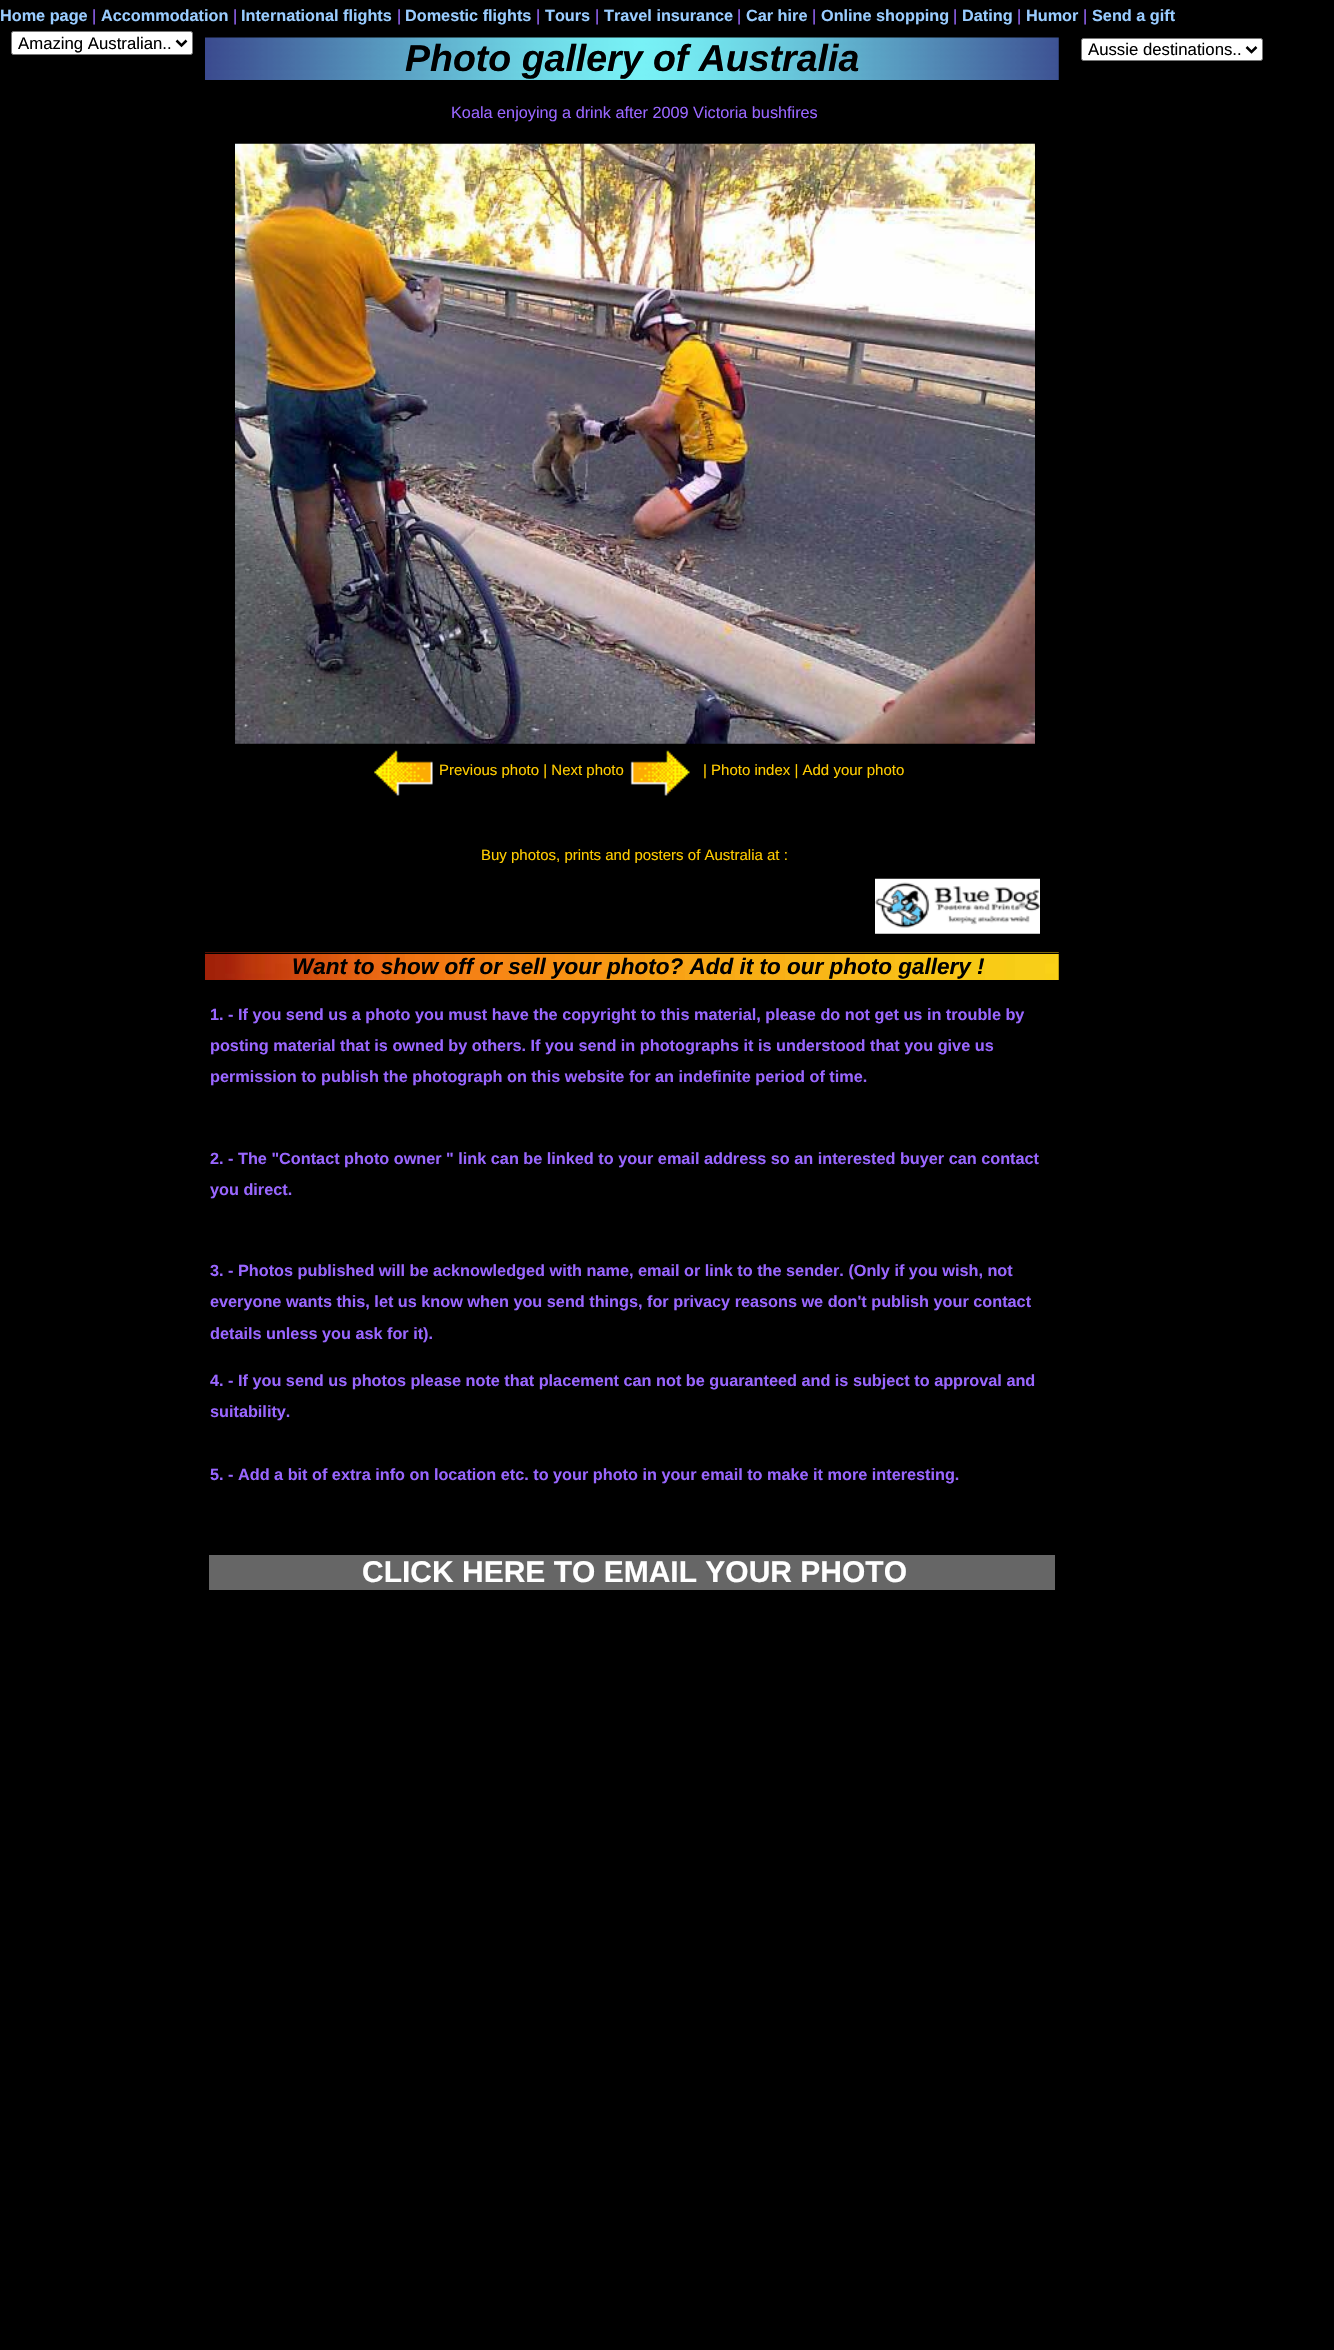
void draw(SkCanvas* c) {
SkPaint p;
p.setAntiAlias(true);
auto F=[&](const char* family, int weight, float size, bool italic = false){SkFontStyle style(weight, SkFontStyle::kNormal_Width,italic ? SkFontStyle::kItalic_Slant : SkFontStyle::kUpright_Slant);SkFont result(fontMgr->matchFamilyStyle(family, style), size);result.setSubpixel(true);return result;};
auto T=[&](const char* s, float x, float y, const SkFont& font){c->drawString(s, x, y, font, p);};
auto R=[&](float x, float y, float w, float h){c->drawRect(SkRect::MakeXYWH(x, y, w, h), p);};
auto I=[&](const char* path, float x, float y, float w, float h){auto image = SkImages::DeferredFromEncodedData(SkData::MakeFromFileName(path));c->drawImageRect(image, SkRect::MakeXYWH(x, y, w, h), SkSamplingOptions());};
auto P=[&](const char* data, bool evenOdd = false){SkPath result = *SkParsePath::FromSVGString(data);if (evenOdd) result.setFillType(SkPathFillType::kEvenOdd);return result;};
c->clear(0xff000000);
auto f1 = F("Liberation Sans",700,16.25);
p.setColor(0xff99ccff);
T("Home page",0,21,f1);
auto f2 = F("Liberation Sans",400,16.25);
p.setColor(0xff9966ff);
T("|",92,21,f2);
p.setColor(0xff99ccff);
T("Accommodation",101,21,f1);
p.setColor(0xff9966ff);
T("|",233,21,f2);
p.setColor(0xff99ccff);
T("International flights",241,21,f1);
p.setColor(0xff9966ff);
T("|",397,21,f2);
p.setColor(0xff99ccff);
T("Domestic flights",405,21,f1);
p.setColor(0xff9966ff);
T("|",536,21,f2);
p.setColor(0xff99ccff);
T("Tours",545,21,f1);
p.setColor(0xff9966ff);
T("|",595,21,f2);
p.setColor(0xff99ccff);
T("Travel insurance",604,21,f1);
p.setColor(0xff9966ff);
T("|",737,21,f2);
p.setColor(0xff99ccff);
T("Car hire",746,21,f1);
p.setColor(0xff9966ff);
T("|",812,21,f2);
p.setColor(0xff99ccff);
T("Online shopping",821,21,f1);
p.setColor(0xff9966ff);
T("|",953,21,f2);
p.setColor(0xff99ccff);
T("Dating",962,21,f1);
p.setColor(0xff9966ff);
T("|",1017,21,f2);
p.setColor(0xff99ccff);
T("Humor",1026,21,f1);
p.setColor(0xff9966ff);
T("|",1083,21,f2);
p.setColor(0xff99ccff);
T("Send a gift",1092,21,f1);
p.setColor(0xffffffff);
c->drawRoundRect(SkRect::MakeXYWH(11.5,31.5,181,23),2,2,p);
p.setStroke(true);
p.setStrokeWidth(1);
p.setColor(0xff767676);
c->drawRoundRect(SkRect::MakeXYWH(11.5,31.5,181,23),2,2,p);
p.setStrokeWidth(2.5);
p.setColor(0xff000000);
c->drawPath(P("M176.5 40.5l5 5l5-5"),p);
auto f3 = F("Liberation Sans",400,16.75);
p.setStroke(false);
T("Amazing Australian..",18,49,f3);
I("1.png",205,37,854,43);
auto f4 = F("Liberation Sans",700,37.5,true);
T("Photo gallery of Australia",405,71,f4);
p.setColor(0xff9966ff);
T("Koala enjoying a drink after 2009 Victoria bushfires",451,118,f2);
I("2.png",235,143,800,601);
I("3.png",374,750,59,46);
auto f5 = F("Liberation Sans",400,15);
p.setColor(0xffffcc00);
T("Previous photo | Next photo",439,775,f5);
I("4.png",630,750,60,46);
T("| Photo index | Add your photo",703,775,f5);
T("Buy photos, prints and posters of Australia at :",481,860,f5);
I("5.png",875,878,165,56);
I("6.png",205,952,854,28);
p.setColor(0xff000000);
R(205,953,854,1);
auto f6 = F("Liberation Sans",700,22.5,true);
T("Want to show off or sell your photo? Add it to our photo gallery !",292,974,f6);
p.setColor(0xff9966ff);
T("1. - If you send us a photo you must have the copyright to this material, please do not get us in trouble by",210,1020,f1);
T("posting material that is owned by others. If you send in photographs it is understood that you give us",210,1051,f1);
T("permission to publish the photograph on this website for an indefinite period of time.",210,1082,f1);
T("2. - The \"Contact photo owner \" link can be linked to your email address so an interested buyer can contact",210,1164,f1);
T("you direct.",210,1195,f1);
T("3. - Photos published will be acknowledged with name, email or link to the sender. (Only if you wish, not",210,1276,f1);
T("everyone wants this, let us know when you send things, for privacy reasons we don't publish your contact",210,1307,f1);
T("details unless you ask for it).",210,1339,f1);
T("4. - If you send us photos please note that placement can not be guaranteed and is subject to approval and",210,1386,f1);
T("suitability.",210,1417,f1);
T("5. - Add a bit of extra info on location etc. to your photo in your email to make it more interesting.",210,1480,f1);
p.setColor(0xff666666);
R(209,1555,846,35);
auto f7 = F("Liberation Sans",700,30);
p.setColor(0xffffffff);
T("CLICK HERE TO EMAIL YOUR PHOTO",362,1582,f7);
c->drawRoundRect(SkRect::MakeXYWH(1081.5,38.5,181,22),2,2,p);
p.setStroke(true);
p.setStrokeWidth(1);
p.setColor(0xff767676);
c->drawRoundRect(SkRect::MakeXYWH(1081.5,38.5,181,22),2,2,p);
p.setStrokeWidth(2.5);
p.setColor(0xff000000);
c->drawPath(P("M1246.5 47l5 5l5-5"),p);
p.setStroke(false);
T("Aussie destinations..",1088,55,f3);
}
